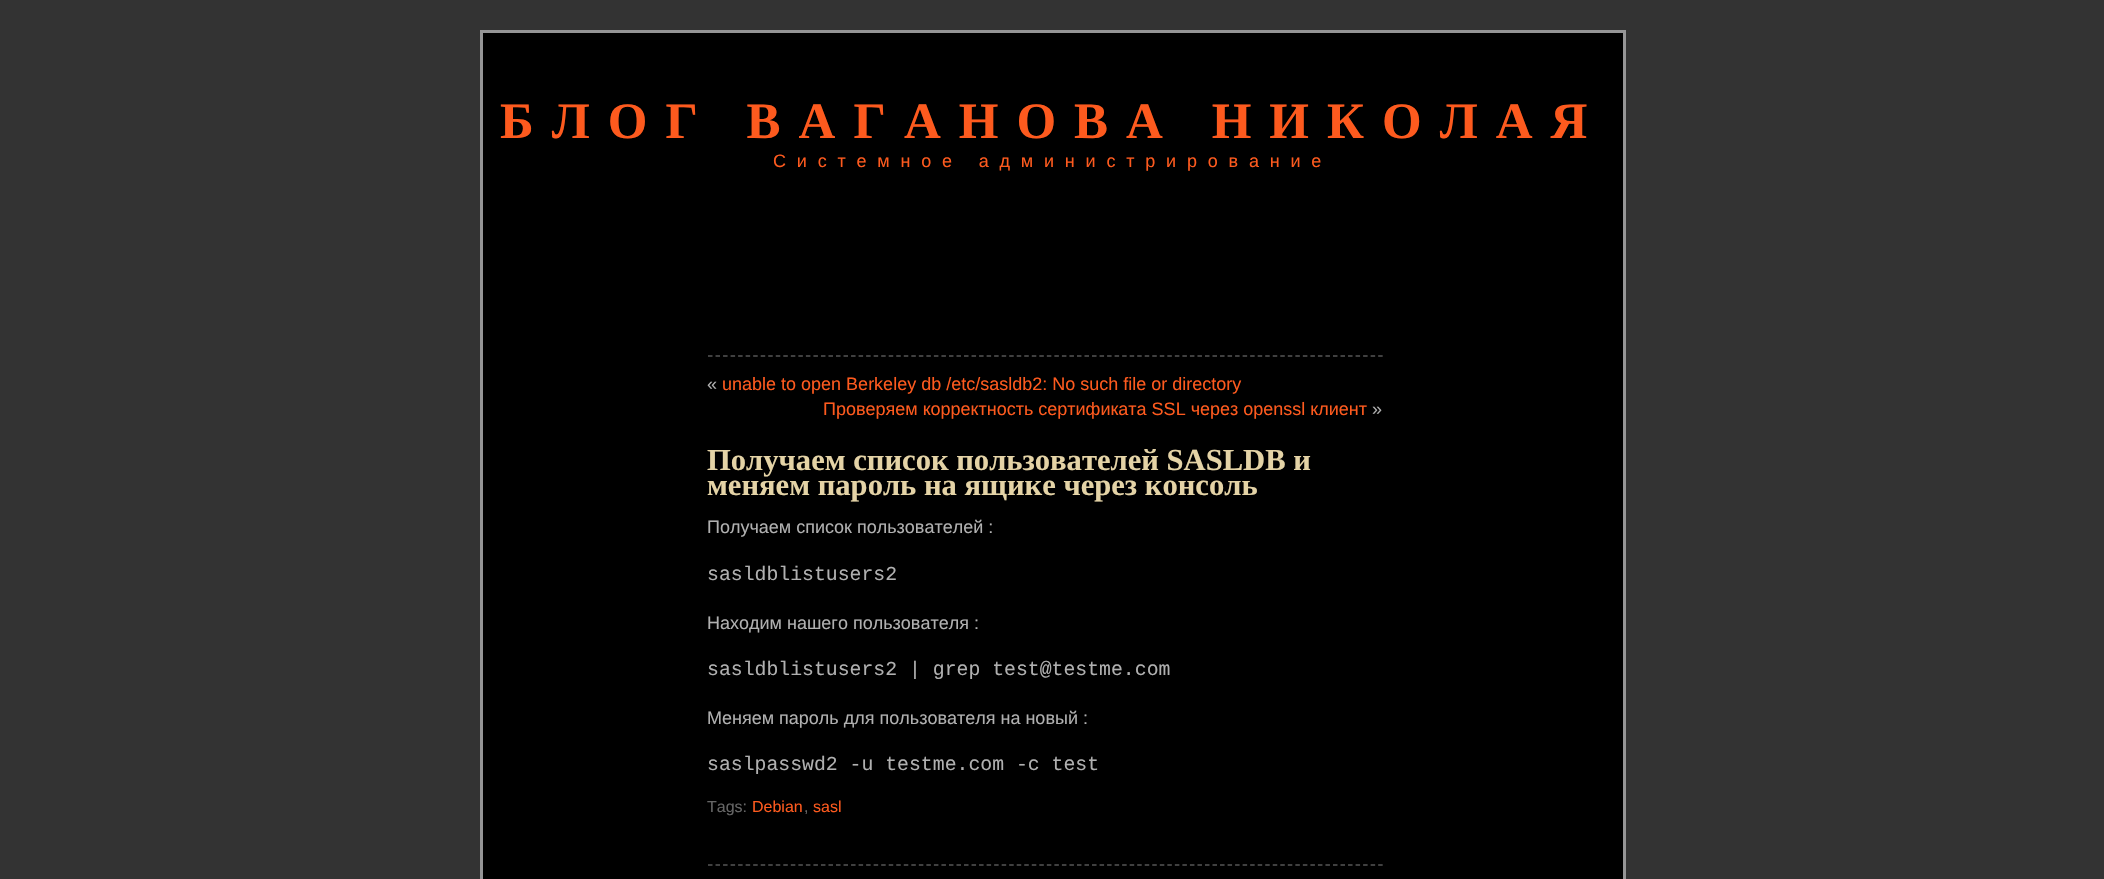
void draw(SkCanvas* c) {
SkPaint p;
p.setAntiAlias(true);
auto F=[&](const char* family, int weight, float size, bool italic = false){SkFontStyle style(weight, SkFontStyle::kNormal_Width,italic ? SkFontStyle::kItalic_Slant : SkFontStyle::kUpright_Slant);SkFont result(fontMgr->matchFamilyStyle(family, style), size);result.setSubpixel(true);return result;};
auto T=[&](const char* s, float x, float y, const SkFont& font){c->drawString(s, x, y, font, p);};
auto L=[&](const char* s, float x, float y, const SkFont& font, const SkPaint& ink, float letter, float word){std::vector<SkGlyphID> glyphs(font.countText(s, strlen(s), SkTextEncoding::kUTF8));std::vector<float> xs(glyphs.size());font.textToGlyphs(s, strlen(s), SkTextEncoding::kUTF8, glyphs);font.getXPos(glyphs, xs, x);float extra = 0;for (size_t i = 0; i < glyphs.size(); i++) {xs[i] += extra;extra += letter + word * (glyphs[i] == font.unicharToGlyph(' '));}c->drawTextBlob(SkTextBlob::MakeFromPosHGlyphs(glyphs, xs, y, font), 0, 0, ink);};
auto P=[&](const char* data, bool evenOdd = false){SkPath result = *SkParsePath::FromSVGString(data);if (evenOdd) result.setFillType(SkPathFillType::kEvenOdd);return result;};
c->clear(0xff333333);
p.setColor(0xff000000);
c->drawRect(SkRect::MakeXYWH(481.5,31.5,1143,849),p);
p.setStroke(true);
p.setStrokeWidth(3);
p.setColor(0xff959596);
c->drawRect(SkRect::MakeXYWH(481.5,31.5,1143,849),p);
auto f1 = F("Liberation Serif",700,51);
p.setStroke(false);
p.setColor(0xfffd5a1e);
L("БЛОГ ВАГАНОВА НИКОЛАЯ",500,138,f1,p,18,0);
auto f2 = F("Liberation Sans",400,18);
L("Системное администрирование",773,167,f2,p,10.8,0);
p.setStroke(true);
p.setStrokeWidth(1.5);
p.setColor(0xff555555);
p.setPathEffect(SkDashPathEffect::Make({{4.5f,3.03f}}, 0));
c->drawPath(P("M708 356h675"),p);
p.setPathEffect(nullptr);
p.setStroke(false);
p.setColor(0xffb0b0b0);
T("«",707,390,f2);
p.setColor(0xfffd5a1e);
T("unable to open Berkeley db /etc/sasldb2: No such file or directory",722,390,f2);
T("Проверяем корректность сертификата SSL через openssl клиент",823,415,f2);
p.setColor(0xffb0b0b0);
T("»",1372,415,f2);
auto f3 = F("Liberation Serif",700,30.6);
p.setColor(0xffe4d3a6);
T("Получаем список пользователей SASLDB и",707,470,f3);
T("меняем пароль на ящике через консоль",707,495,f3);
p.setColor(0xffb0b0b0);
T("Получаем список пользователей :",707,533,f2);
auto f4 = F("Liberation Mono",400,19.8);
T("sasldblistusers2",707,580,f4);
T("Находим нашего пользователя :",707,629,f2);
T("sasldblistusers2 | grep test@testme.com",707,675,f4);
T("Меняем пароль для пользователя на новый :",707,724,f2);
T("saslpasswd2 -u testme.com -c test",707,770,f4);
auto f5 = F("Liberation Sans",400,16);
p.setColor(0xff666666);
T("Tags:",707,812,f5);
p.setColor(0xfffd5a1e);
T("Debian",752,812,f5);
p.setColor(0xff666666);
T(",",804,812,f5);
p.setColor(0xfffd5a1e);
T("sasl",813,812,f5);
p.setStroke(true);
p.setColor(0xff555555);
p.setPathEffect(SkDashPathEffect::Make({{4.5f,3.03f}}, 0));
c->drawPath(P("M708 865h675"),p);
p.setPathEffect(nullptr);
}
